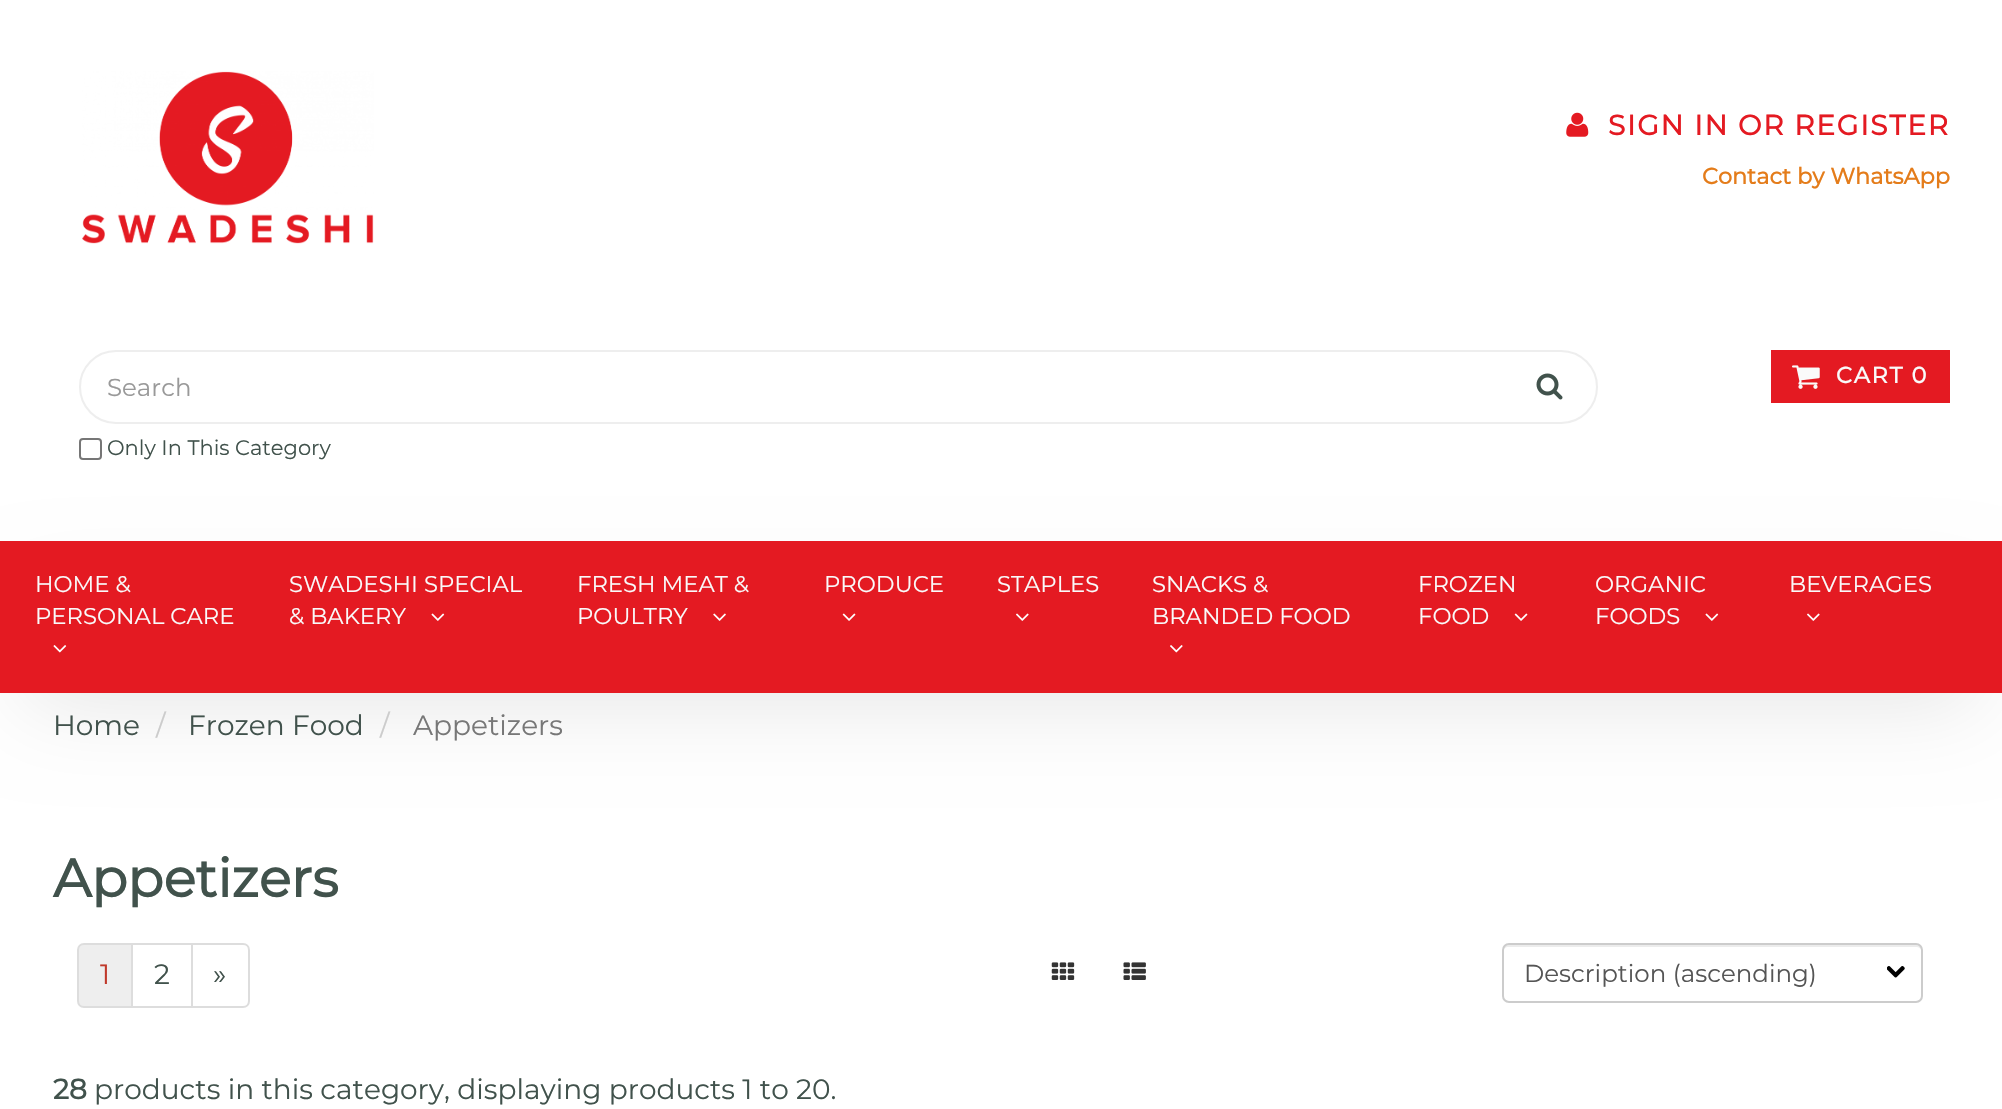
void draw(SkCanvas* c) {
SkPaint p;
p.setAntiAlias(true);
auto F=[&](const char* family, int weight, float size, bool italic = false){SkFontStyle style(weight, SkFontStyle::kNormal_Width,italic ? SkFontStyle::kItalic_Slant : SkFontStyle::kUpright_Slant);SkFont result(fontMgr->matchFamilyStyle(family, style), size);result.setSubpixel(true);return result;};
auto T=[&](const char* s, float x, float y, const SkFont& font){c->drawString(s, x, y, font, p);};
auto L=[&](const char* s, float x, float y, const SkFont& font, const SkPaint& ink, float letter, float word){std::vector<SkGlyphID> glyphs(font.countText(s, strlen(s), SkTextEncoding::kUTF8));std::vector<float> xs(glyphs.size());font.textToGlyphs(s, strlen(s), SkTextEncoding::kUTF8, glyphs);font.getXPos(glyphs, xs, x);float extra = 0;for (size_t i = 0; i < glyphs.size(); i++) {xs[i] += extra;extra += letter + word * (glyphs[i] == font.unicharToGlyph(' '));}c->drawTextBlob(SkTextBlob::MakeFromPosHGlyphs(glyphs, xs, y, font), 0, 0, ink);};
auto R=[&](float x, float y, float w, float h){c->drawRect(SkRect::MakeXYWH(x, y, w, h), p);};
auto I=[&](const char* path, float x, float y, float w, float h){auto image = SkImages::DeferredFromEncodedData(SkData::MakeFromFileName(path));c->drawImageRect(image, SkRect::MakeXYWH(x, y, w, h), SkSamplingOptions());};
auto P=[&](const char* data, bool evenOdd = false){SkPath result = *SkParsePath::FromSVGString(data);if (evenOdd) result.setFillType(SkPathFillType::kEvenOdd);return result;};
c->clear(0xffffffff);
I("1.png",82,71,292,173);
I("2.png",1566,112,23,25);
auto f1 = F("Montserrat",700,28);
p.setColor(0xffe41a22);
L("SIGN IN OR REGISTER",1608,135,f1,p,1.75,0);
auto f2 = F("Montserrat",700,22.4);
p.setColor(0xffe47c1a);
T("Contact by WhatsApp",1702,184,f2);
p.setStroke(true);
p.setStrokeWidth(2);
p.setColor(0xffeeeeee);
c->drawRoundRect(SkRect::MakeXYWH(80,351,1517,72),36,36,p);
auto f3 = F("Montserrat",100,24.5);
p.setStroke(false);
p.setColor(0xff999999);
T("Search",107,396,f3);
p.setStroke(true);
p.setColor(0xff767676);
c->drawRoundRect(SkRect::MakeXYWH(80,439,21,20),3,3,p);
auto f4 = F("Montserrat",100,21);
p.setStroke(false);
p.setColor(0xff41524c);
T("Only In This Category",107,455,f4);
I("3.png",1536,373,27,27);
p.setColor(0xffe41a22);
R(1771,350,179,53);
I("4.png",1792,365,28,24);
p.setColor(0xfffafafa);
L("CART 0",1836,383,f2,p,1.75,0);
p.setColor(0x1a000000);
p.setMaskFilter(SkMaskFilter::MakeBlur(kNormal_SkBlurStyle, 44));
c->drawRect(SkRect::MakeXYWH(26,602,1950,100),p);
p.setMaskFilter(nullptr);
p.setColor(0xffe41a22);
R(0,541,2002,152);
auto f5 = F("Montserrat",100,22.75);
p.setColor(0xfffafafa);
T("HOME &",35,592,f5);
T("PERSONAL CARE",35,624,f5);
I("5.png",53,645,14,8);
T("SWADESHI SPECIAL",289,592,f5);
T("& BAKERY",289,624,f5);
I("6.png",431,613,14,8);
T("FRESH MEAT &",577,592,f5);
T("POULTRY",577,624,f5);
I("7.png",713,613,13,8);
T("PRODUCE",824,592,f5);
I("8.png",842,613,14,8);
T("STAPLES",997,592,f5);
I("9.png",1016,613,13,8);
T("SNACKS &",1152,592,f5);
T("BRANDED FOOD",1152,624,f5);
I("10.png",1170,645,13,8);
T("FROZEN",1418,592,f5);
T("FOOD",1418,624,f5);
I("8.png",1514,613,14,8);
T("ORGANIC",1595,592,f5);
T("FOODS",1595,624,f5);
I("6.png",1705,613,14,8);
T("BEVERAGES",1789,592,f5);
I("9.png",1807,613,13,8);
auto f6 = F("Montserrat",100,28);
p.setColor(0xff41524c);
T("Home",53,735,f6);
p.setColor(0xffcccccc);
T("/",156,735,f6);
p.setColor(0xff41524c);
T("Frozen Food",188,735,f6);
p.setColor(0xffcccccc);
T("/",380,735,f6);
p.setColor(0xff777777);
T("Appetizers",413,735,f6);
auto f7 = F("Montserrat",700,53.25);
p.setColor(0xff41524c);
T("Appetizers",53,897,f7);
p.setColor(0xffeeeeee);
c->drawPath(P("M84 944h48v63h-48c-3.5 0-6-2.5-6-6v-51c0-3.5 2.5-6 6-6z"),p);
p.setStroke(true);
p.setColor(0xffdddddd);
c->drawPath(P("M84 944h48v63h-48c-3.5 0-6-2.5-6-6v-51c0-3.5 2.5-6 6-6z"),p);
p.setStroke(false);
p.setColor(0xffc0392b);
T("1",100,984,f6);
p.setStroke(true);
p.setColor(0xffdddddd);
c->drawRect(SkRect::MakeXYWH(132,944,60,63),p);
p.setStroke(false);
p.setColor(0xff41524c);
T("2",154,984,f6);
p.setColor(0xffffffff);
c->drawPath(P("M192 944h51c3.5 0 6 2.5 6 6v51c0 3.5-2.5 6-6 6h-51z"),p);
p.setStroke(true);
p.setColor(0xffdddddd);
c->drawPath(P("M192 944h51c3.5 0 6 2.5 6 6v51c0 3.5-2.5 6-6 6h-51z"),p);
p.setStroke(false);
p.setColor(0xff41524c);
T("»",213,984,f6);
I("11.png",1051,962,24,18);
I("12.png",1123,962,23,18);
I("13.png",1887,966,18,12);
p.setColor(0xffececec);
c->drawPath(P("M1508 947h408c3 0 6 2 6 5v-2c0-3-2-5-5-5h-409c-3 0-5 2-5 5v2c0-3 3-5 5-5z"),p);
p.setStroke(true);
p.setColor(0xffcccccc);
c->drawRoundRect(SkRect::MakeXYWH(1503,944,419,58),6,6,p);
p.setStroke(false);
p.setColor(0xff555555);
T("Description (ascending)",1524,982,f3);
p.setColor(0xff41524c);
T("28",53,1099,f1);
T("products in this category, displaying products 1 to 20.",94,1099,f6);
}
